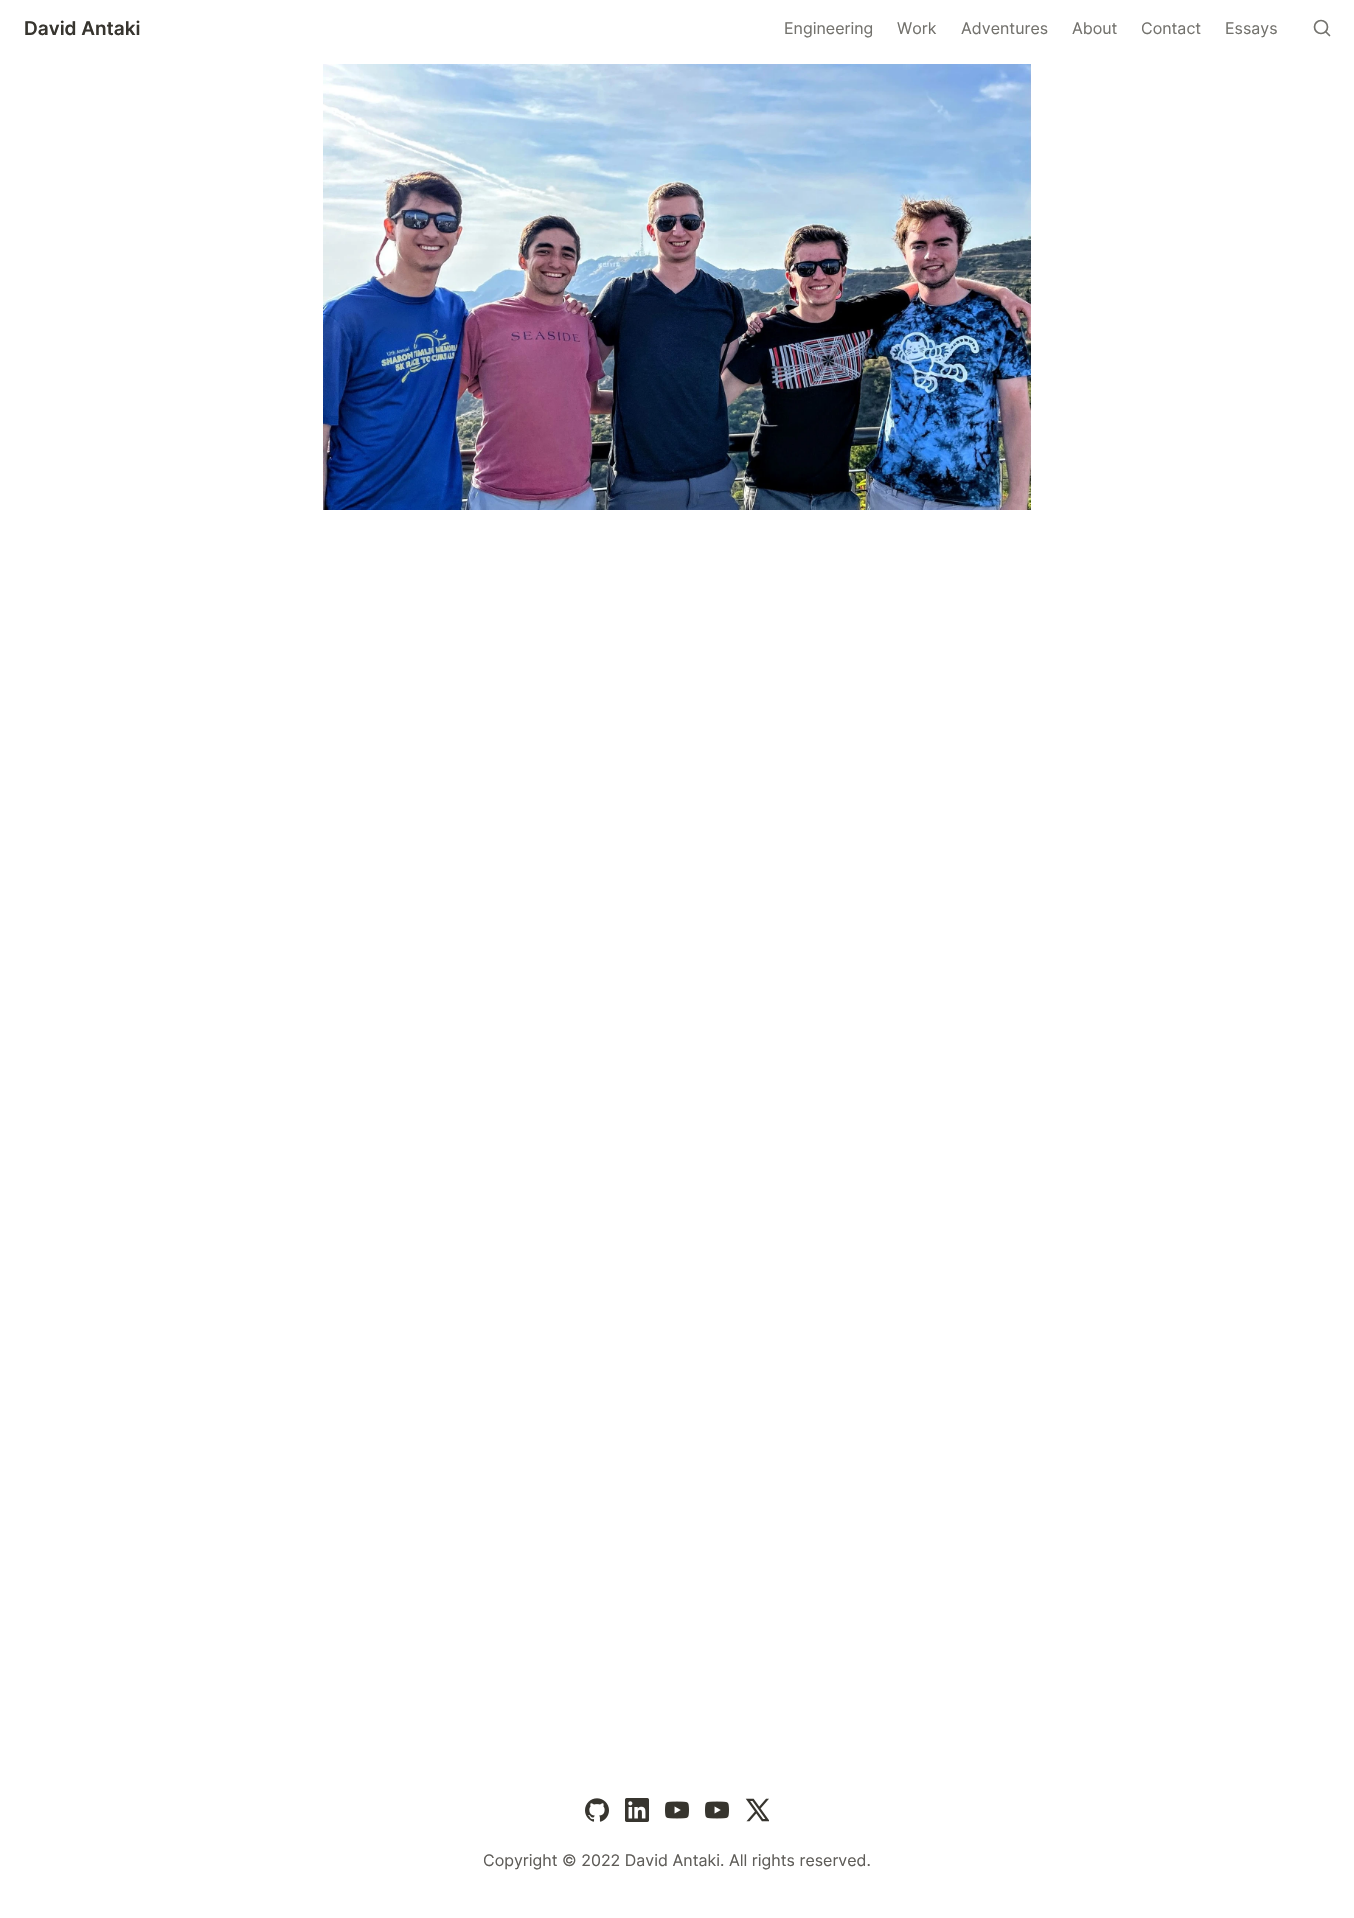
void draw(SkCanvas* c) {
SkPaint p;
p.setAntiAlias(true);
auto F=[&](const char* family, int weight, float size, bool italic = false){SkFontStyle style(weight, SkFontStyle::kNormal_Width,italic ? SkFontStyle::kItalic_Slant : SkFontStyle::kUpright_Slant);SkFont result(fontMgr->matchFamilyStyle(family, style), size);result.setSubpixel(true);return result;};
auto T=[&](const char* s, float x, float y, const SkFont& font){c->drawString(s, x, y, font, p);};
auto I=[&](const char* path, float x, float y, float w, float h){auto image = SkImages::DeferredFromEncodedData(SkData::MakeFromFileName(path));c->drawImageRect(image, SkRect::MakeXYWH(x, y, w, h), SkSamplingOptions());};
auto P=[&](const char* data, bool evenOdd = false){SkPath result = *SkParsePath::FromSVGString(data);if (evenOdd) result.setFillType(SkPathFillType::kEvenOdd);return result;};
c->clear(0xffffffff);
auto f1 = F("Inter",600,19);
p.setColor(0xff37352f);
T("David Antaki",24,35,f1);
auto f2 = F("Inter",400,16);
p.setColor(0xff73726d);
T("Engineering",784,34,f2);
T("Work",897,34,f2);
T("Adventures",961,34,f2);
T("About",1072,34,f2);
T("Contact",1141,34,f2);
T("Essays",1225,34,f2);
p.setStroke(true);
p.setStrokeWidth(1.7);
c->drawCircle(1321,27,6.5,p);
p.setStrokeCap(SkPaint::kRound_Cap);
p.setStrokeJoin(SkPaint::kRound_Join);
c->drawPath(P("M1329.5 35.5l-3.5-3.5"),p);
I("1.png",323,64,708,446);
I("2.png",585,1798,24,24);
I("3.png",625,1798,24,24);
I("4.png",665,1801,24,18);
I("4.png",705,1801,24,18);
I("5.png",745,1798,24,24);
p.setStroke(false);
p.setColor(0xff5f5d59);
T("Copyright © 2022 David Antaki. All rights reserved.",483,1866,f2);
}
